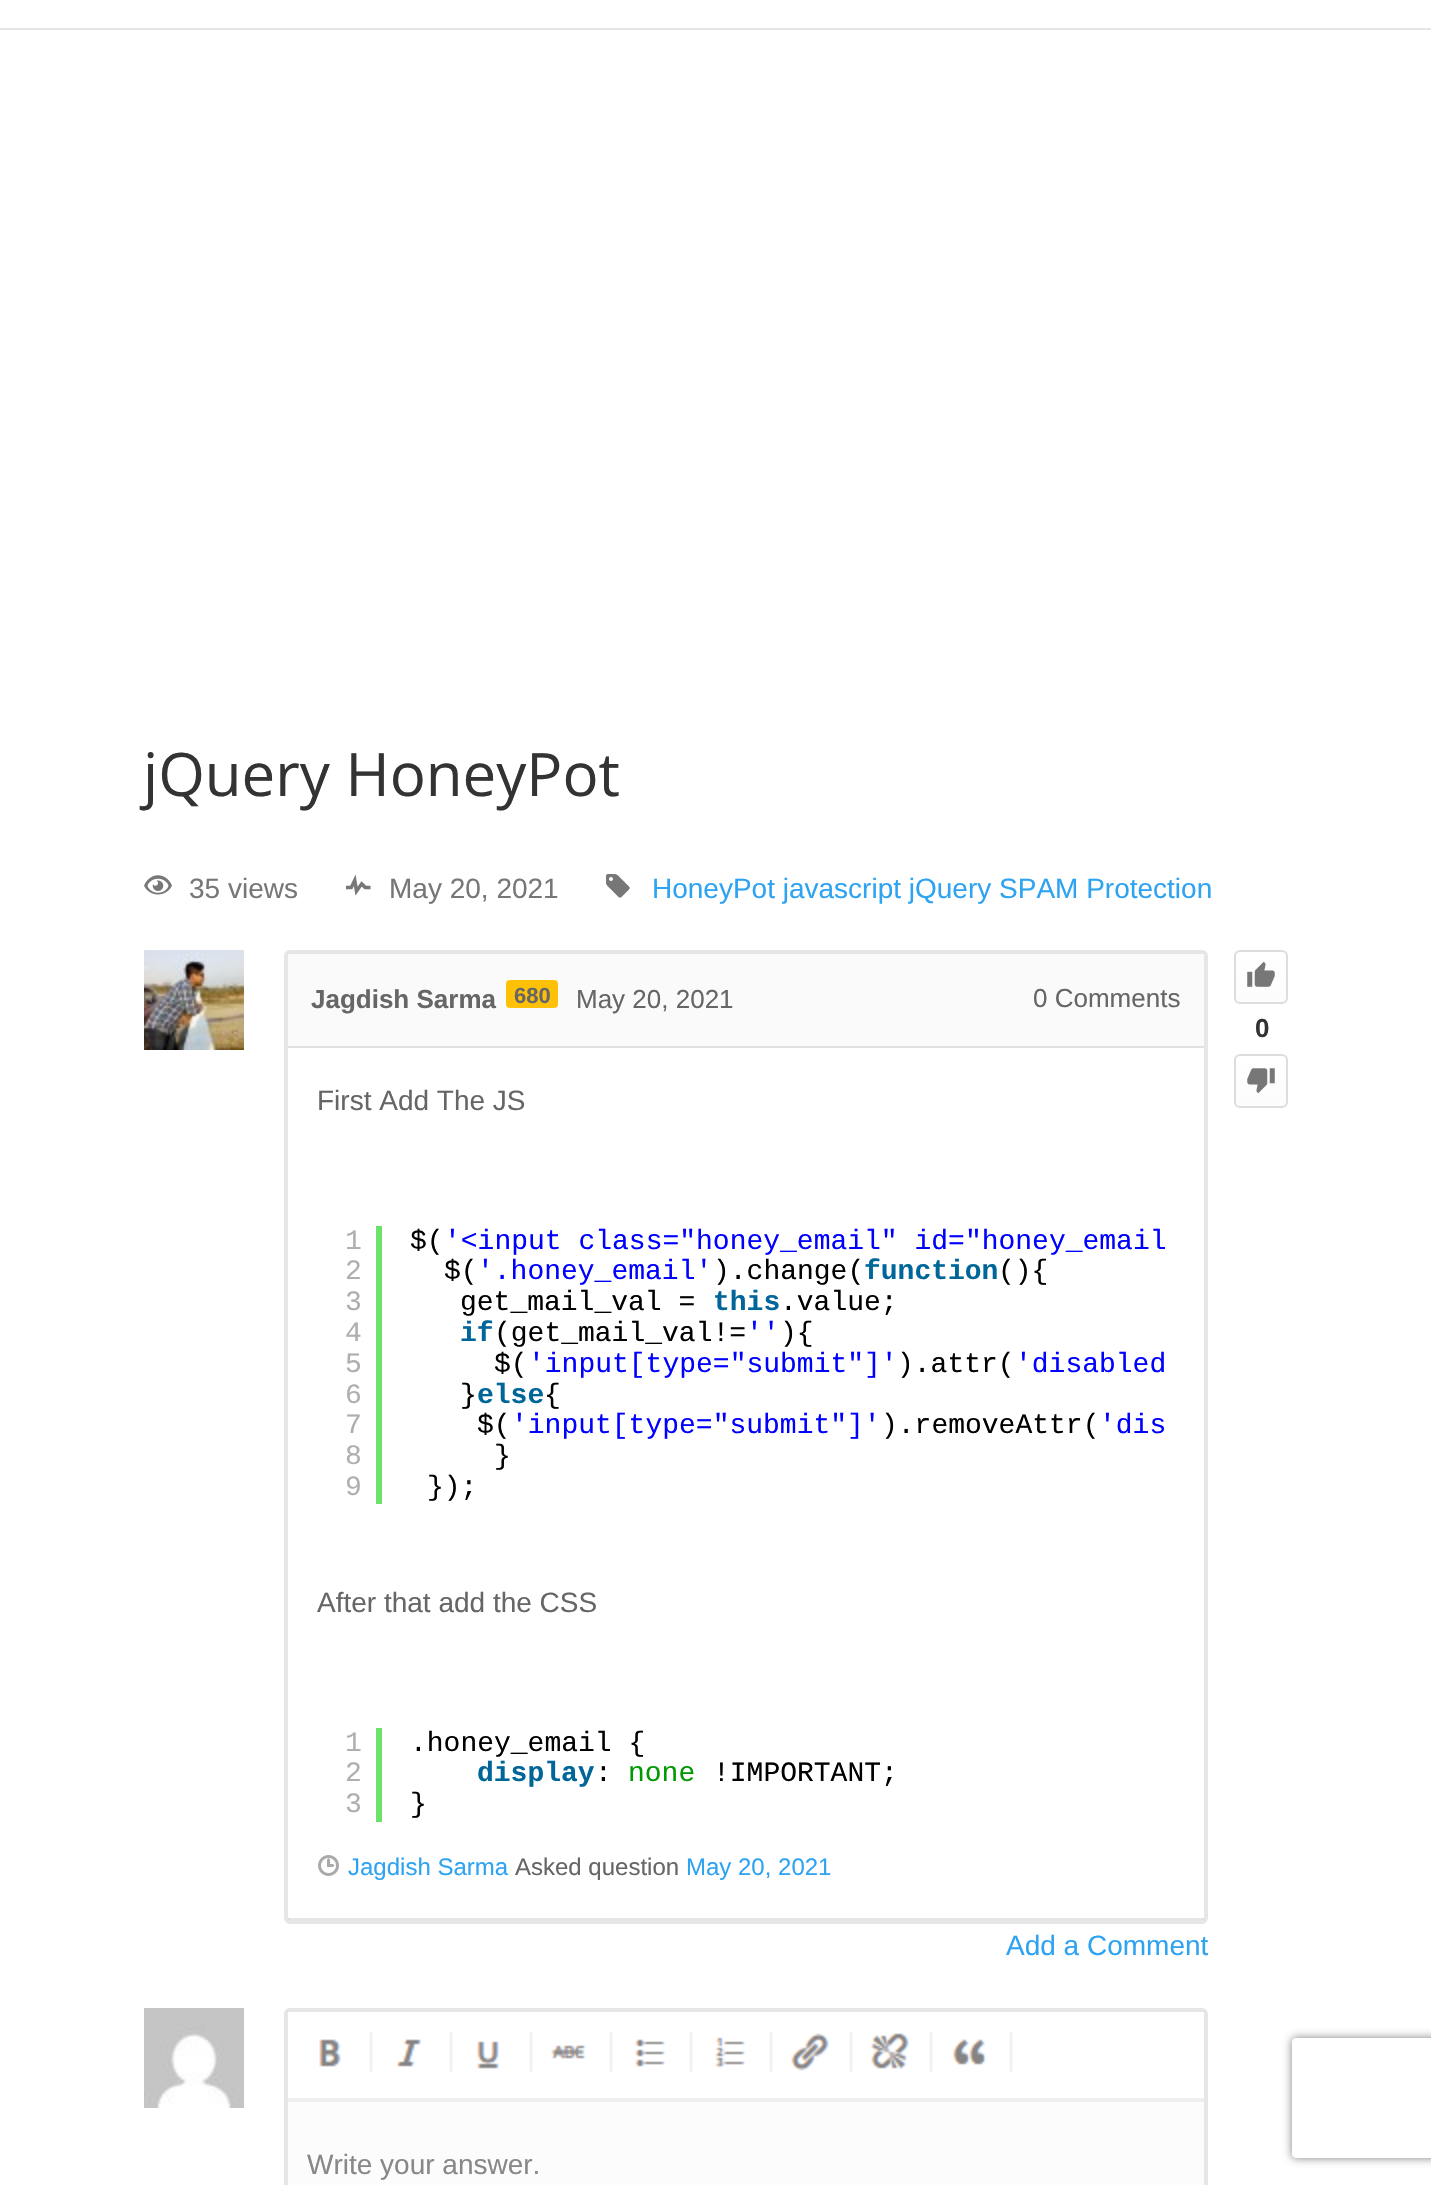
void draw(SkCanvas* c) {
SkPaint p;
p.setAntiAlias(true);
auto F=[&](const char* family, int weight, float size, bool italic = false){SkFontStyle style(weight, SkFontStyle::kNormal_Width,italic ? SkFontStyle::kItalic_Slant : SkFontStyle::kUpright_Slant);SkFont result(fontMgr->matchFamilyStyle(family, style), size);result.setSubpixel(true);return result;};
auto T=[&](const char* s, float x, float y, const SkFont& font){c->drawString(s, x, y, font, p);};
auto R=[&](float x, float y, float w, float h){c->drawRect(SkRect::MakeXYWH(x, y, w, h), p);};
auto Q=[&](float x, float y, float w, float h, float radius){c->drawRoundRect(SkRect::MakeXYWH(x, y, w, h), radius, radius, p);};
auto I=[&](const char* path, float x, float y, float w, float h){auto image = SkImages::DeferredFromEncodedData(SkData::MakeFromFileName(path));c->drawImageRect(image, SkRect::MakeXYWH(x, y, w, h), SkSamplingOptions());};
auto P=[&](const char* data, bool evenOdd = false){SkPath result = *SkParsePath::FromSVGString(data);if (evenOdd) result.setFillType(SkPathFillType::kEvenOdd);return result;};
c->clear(0xffffffff);
p.setColor(0xffe6e6e6);
R(0,28,1431,2);
auto f1 = F("Open Sans",400,60);
p.setColor(0xff333333);
T("jQuery HoneyPot",143,796,f1);
I("1.png",144,875,28,20);
auto f2 = F("Liberation Sans",400,28);
p.setColor(0xff777777);
T("35 views",189,898,f2);
I("2.png",346,874,25,22);
T("May 20, 2021",389,898,f2);
I("3.png",606,874,24,24);
p.setColor(0xff2ea3f2);
T("HoneyPot javascript jQuery SPAM Protection",652,898,f2);
I("4.png",144,950,100,100);
p.setStroke(true);
p.setStrokeWidth(4);
p.setColor(0xffe6e6e6);
c->drawRoundRect(SkRect::MakeXYWH(286,952,920,970),4,4,p);
p.setStroke(false);
p.setColor(0xfffafafa);
R(288,954,916,92);
p.setColor(0xffe1e1e1);
R(288,1046,916,2);
auto f3 = F("Liberation Sans",700,26);
p.setColor(0xff666666);
T("Jagdish Sarma",311,1008,f3);
p.setColor(0xffffc107);
Q(506,980,52,28,4);
auto f4 = F("Liberation Sans",700,22);
p.setColor(0xff666666);
T("680",514,1003,f4);
auto f5 = F("Liberation Sans",400,26);
T("May 20, 2021",576,1008,f5);
T("0 Comments",1033,1007,f5);
T("First Add The JS",317,1110,f2);
p.setColor(0xff6ce26c);
R(376,1226,6,278);
auto f6 = F("Liberation Mono",400,28);
p.setColor(0xffafafaf);
T("1",345,1249,f6);
T("2",345,1279,f6);
T("3",345,1310,f6);
T("4",345,1341,f6);
T("5",345,1372,f6);
T("6",345,1403,f6);
T("7",345,1433,f6);
T("8",345,1464,f6);
T("9",345,1495,f6);
p.setColor(0xff000000);
T("$(",410,1249,f6);
p.setColor(0xff0000ff);
T("'<input class=\"honey_email\" id=\"honey_email",444,1249,f6);
p.setColor(0xff000000);
T("$(",444,1279,f6);
p.setColor(0xff0000ff);
T("'.honey_email'",477,1279,f6);
p.setColor(0xff000000);
T(").change(",713,1279,f6);
auto f7 = F("Liberation Mono",700,28);
p.setColor(0xff006699);
T("function",864,1279,f7);
p.setColor(0xff000000);
T("(){",998,1279,f6);
T("get_mail_val =",460,1310,f6);
p.setColor(0xff006699);
T("this",713,1310,f7);
p.setColor(0xff000000);
T(".value;",780,1310,f6);
p.setColor(0xff006699);
T("if",460,1341,f7);
p.setColor(0xff000000);
T("(get_mail_val!=",494,1341,f6);
p.setColor(0xff0000ff);
T("''",746,1341,f6);
p.setColor(0xff000000);
T("){",780,1341,f6);
T("$(",494,1372,f6);
p.setColor(0xff0000ff);
T("'input[type=\"submit\"]'",528,1372,f6);
p.setColor(0xff000000);
T(").attr(",897,1372,f6);
p.setColor(0xff0000ff);
T("'disabled",1015,1372,f6);
p.setColor(0xff000000);
T("}",460,1403,f6);
p.setColor(0xff006699);
T("else",477,1403,f7);
p.setColor(0xff000000);
T("{",544,1403,f6);
T("$(",477,1433,f6);
p.setColor(0xff0000ff);
T("'input[type=\"submit\"]'",511,1433,f6);
p.setColor(0xff000000);
T(").removeAttr(",881,1433,f6);
p.setColor(0xff0000ff);
T("'dis",1099,1433,f6);
p.setColor(0xff000000);
T("}",494,1464,f6);
T("});",427,1495,f6);
p.setColor(0xff666666);
T("After that add the CSS",317,1612,f2);
p.setColor(0xff6ce26c);
R(376,1728,6,94);
p.setColor(0xffafafaf);
T("1",345,1751,f6);
T("2",345,1781,f6);
T("3",345,1812,f6);
p.setColor(0xff000000);
T(".honey_email {",410,1751,f6);
p.setColor(0xff006699);
T("display",477,1781,f7);
p.setColor(0xff000000);
T(":",595,1781,f6);
p.setColor(0xff009900);
T("none",628,1781,f6);
p.setColor(0xff000000);
T("!IMPORTANT;",713,1781,f6);
T("}",410,1812,f6);
I("5.png",318,1855,21,21);
auto f8 = F("Liberation Sans",400,24);
p.setColor(0xff2ea3f2);
T("Jagdish Sarma",348,1875,f8);
p.setColor(0xff666666);
T("Asked question",515,1875,f8);
p.setColor(0xff2ea3f2);
T("May 20, 2021",686,1875,f8);
p.setColor(0x1a000000);
R(288,1918,916,2);
p.setColor(0xff2ea3f2);
T("Add a Comment",1006,1955,f2);
c->save();
c->clipPath(P("M1240 950h42c3.5 0 6 2.5 6 6v42c0 3.5-2.5 6-6 6h-42c-3.5 0-6-2.5-6-6v-42c0-3.5 2.5-6 6-6z"),true);
{
const SkColor colors[] = {0xffffffff,0xfffcfcfc};
const float stops[] = {0,1};
const SkPoint ends[] = {{1261,952}, {1261,1002}};
p.setShader(SkGradientShader::MakeLinear(ends, colors, stops, 2, SkTileMode::kClamp));
p.setAlpha(255);
}
R(1234,952,54,50);
c->restore();
p.setStroke(true);
p.setStrokeWidth(2);
p.setShader(nullptr);
p.setColor(0xffdddddd);
c->drawRoundRect(SkRect::MakeXYWH(1235,951,52,52),5,5,p);
I("6.png",1247,961,28,26);
p.setStroke(false);
p.setColor(0xff333333);
T("0",1255,1037,f3);
c->save();
c->clipPath(P("M1240 1054h42c3.5 0 6 2.5 6 6v42c0 3.5-2.5 6-6 6h-42c-3.5 0-6-2.5-6-6v-42c0-3.5 2.5-6 6-6z"),true);
{
const SkColor colors[] = {0xffffffff,0xfffcfcfc};
const float stops[] = {0,1};
const SkPoint ends[] = {{1261,1056}, {1261,1106}};
p.setShader(SkGradientShader::MakeLinear(ends, colors, stops, 2, SkTileMode::kClamp));
p.setAlpha(255);
}
R(1234,1056,54,50);
c->restore();
p.setStroke(true);
p.setShader(nullptr);
p.setColor(0xffdddddd);
c->drawRoundRect(SkRect::MakeXYWH(1235,1055,52,52),5,5,p);
I("7.png",1247,1068,28,26);
I("8.png",144,2008,100,100);
p.setStrokeWidth(4);
p.setColor(0xffe6e6e6);
c->drawRoundRect(SkRect::MakeXYWH(286,2010,920,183),4,4,p);
p.setStroke(false);
p.setColor(0xfffcfcfc);
R(288,2102,916,83);
p.setColor(0xffffffff);
R(288,2012,916,2);
I("9.png",319,2032,694,40);
p.setColor(0xffeeeeee);
R(288,2098,916,4);
p.setColor(0xff888888);
T("Write your answer.",307,2174,f2);
c->save();
c->clipPath(P("M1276 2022h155v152h-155zm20 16h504c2 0 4 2 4 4v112c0 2-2 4-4 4h-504c-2 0-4-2-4-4v-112c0-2 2-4 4-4z",true),true);
p.setColor(0xff808080);
p.setMaskFilter(SkMaskFilter::MakeBlur(kNormal_SkBlurStyle, 5));
c->drawRoundRect(SkRect::MakeXYWH(1292,2038,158,120),4,4,p);
p.setMaskFilter(nullptr);
c->restore();
}
